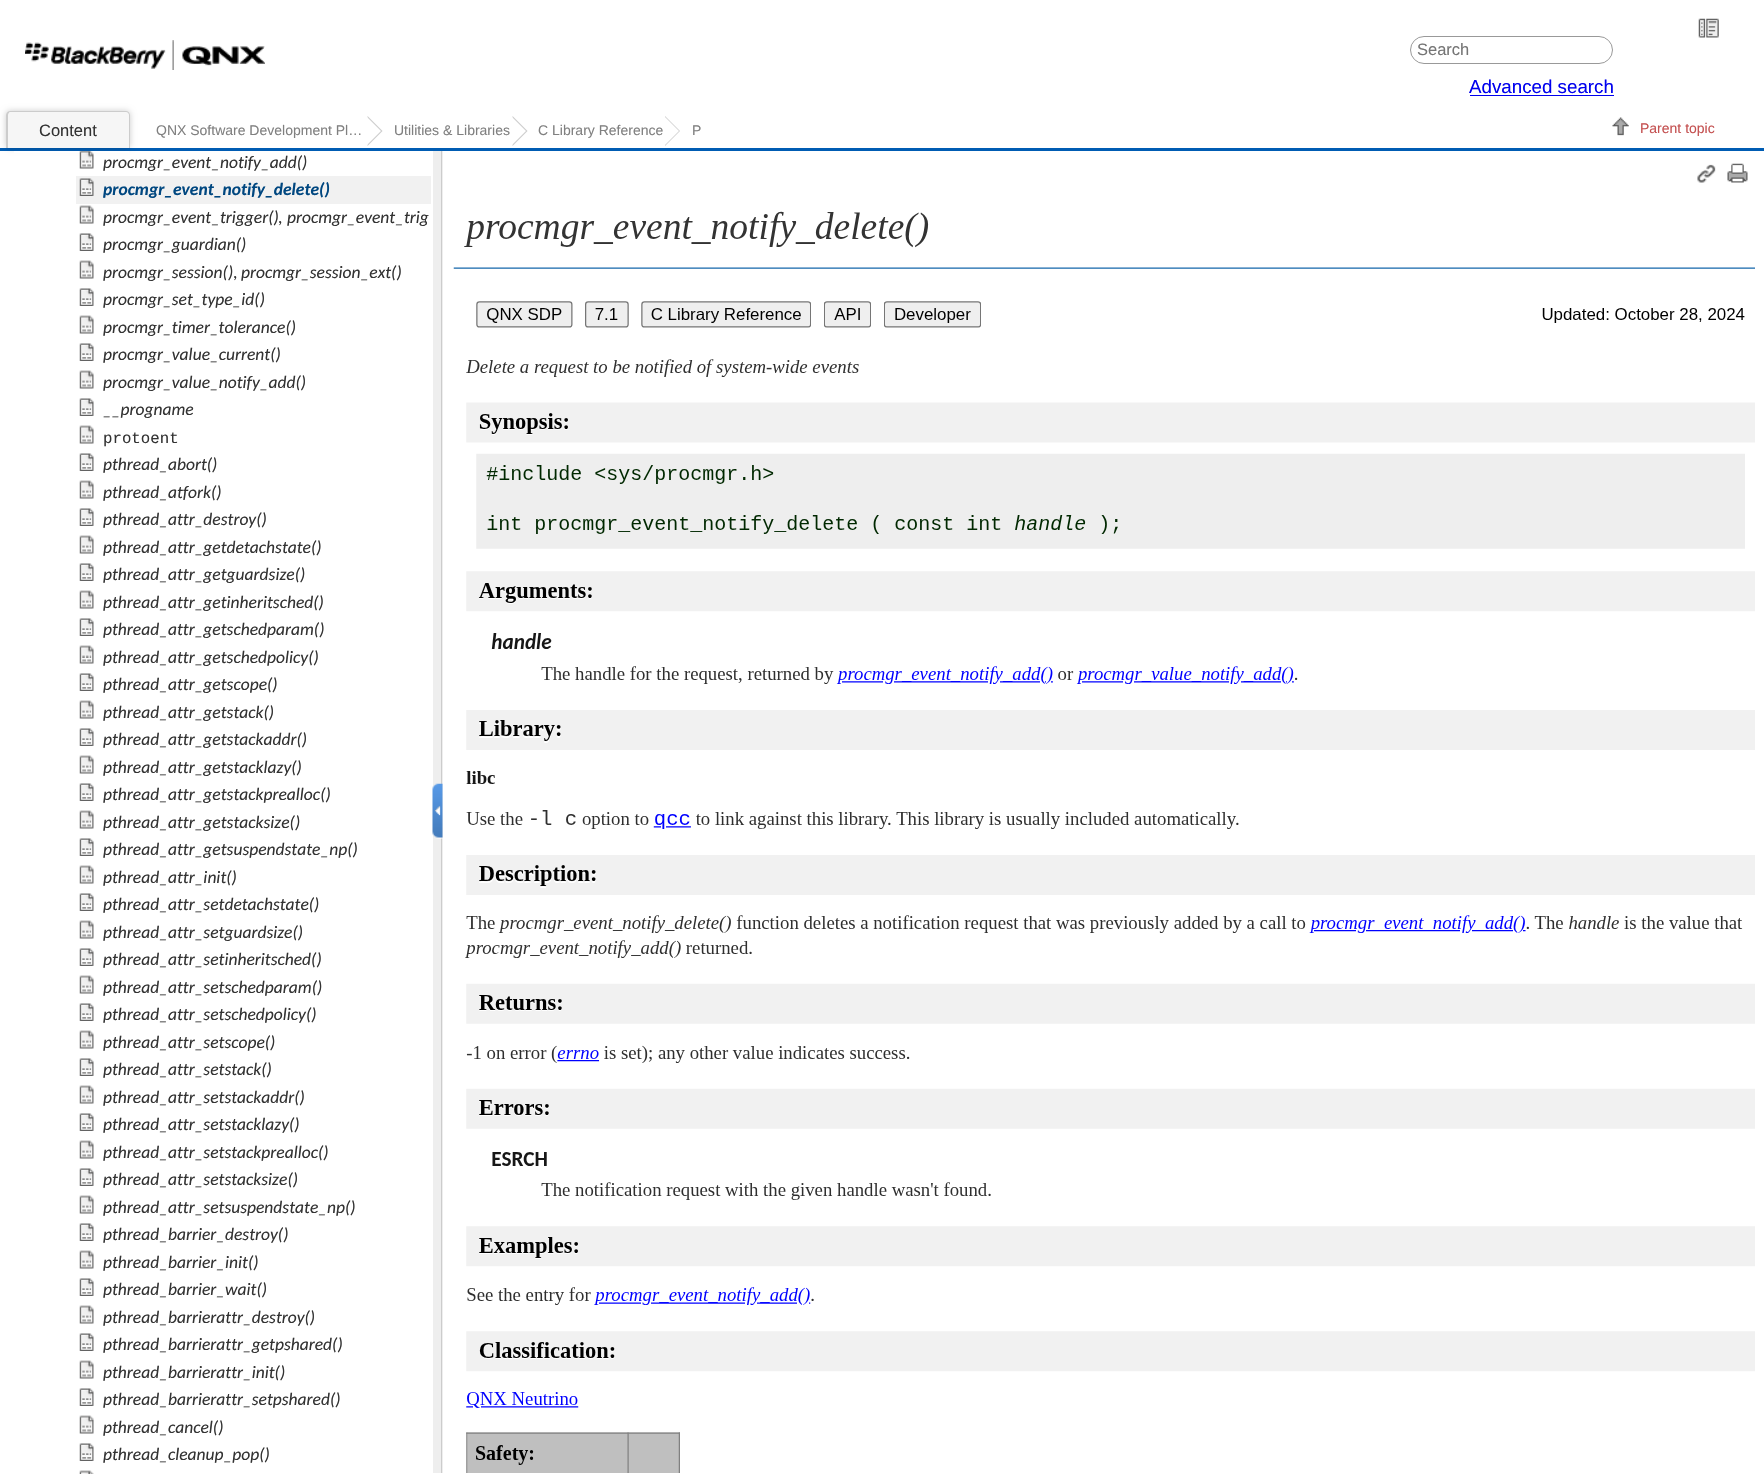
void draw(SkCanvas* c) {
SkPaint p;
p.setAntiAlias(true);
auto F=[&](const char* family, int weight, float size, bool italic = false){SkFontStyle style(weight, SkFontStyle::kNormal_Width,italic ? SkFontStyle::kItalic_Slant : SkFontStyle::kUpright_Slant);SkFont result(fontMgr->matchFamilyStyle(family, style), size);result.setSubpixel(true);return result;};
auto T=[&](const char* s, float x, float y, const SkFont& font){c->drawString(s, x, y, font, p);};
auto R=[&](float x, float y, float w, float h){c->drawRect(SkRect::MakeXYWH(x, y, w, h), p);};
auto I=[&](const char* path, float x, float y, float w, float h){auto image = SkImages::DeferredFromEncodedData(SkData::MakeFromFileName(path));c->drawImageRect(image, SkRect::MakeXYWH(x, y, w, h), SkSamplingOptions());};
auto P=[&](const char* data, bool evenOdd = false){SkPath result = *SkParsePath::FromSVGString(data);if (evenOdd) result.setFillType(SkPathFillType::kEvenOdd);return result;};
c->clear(0xffffffff);
I("1.png",1698,18,21,20);
I("2.png",25,40,240,30);
p.setStroke(true);
p.setStrokeWidth(1);
p.setColor(0xff999999);
c->drawRoundRect(SkRect::MakeXYWH(1410.5,36.5,202,27),13.5,13.5,p);
auto f1 = F("Liberation Sans",400,16.5);
p.setStroke(false);
p.setColor(0xff757575);
T("Search",1417,55,f1);
auto f2 = F("Liberation Sans",400,18.75);
p.setColor(0xff0000ee);
T("Advanced search",1469,93,f2);
R(1470,95,144,1);
p.setColor(0xffeeeeee);
R(433,151,10,1322);
p.setColor(0xffcccccc);
R(441,150,1,1323);
p.setColor(0xff005cb3);
R(0,148,1764,3);
p.setColor(0x33000000);
p.setMaskFilter(SkMaskFilter::MakeBlur(kNormal_SkBlurStyle, 3));
c->drawRoundRect(SkRect::MakeXYWH(6,111,124,37),4,4,p);
p.setMaskFilter(nullptr);
p.setColor(0xfff6f6f6);
c->drawPath(P("M10 111h116c2 0 4 2 4 4v33h-124v-33c0-2 2-4 4-4z"),p);
p.setColor(0xffcccccc);
c->drawPath(P("M10 111h116c2 0 4 2 4 4v33h-124v-33c0-2 2-4 4-4zm0 1h116c2 0 3 2 3 3v33h-121v-33c0-1 1-3 2-3z",true),p);
p.setColor(0xff333333);
T("Content",39,136,f1);
p.setColor(0xffcccccc);
c->drawPath(P("M367.5 146v-30l15 15z"),p);
p.setColor(0xffffffff);
c->drawPath(P("M366 146v-30l15 15z"),p);
auto f3 = F("Liberation Sans",400,14);
p.setColor(0xff808080);
T("QNX Software Development Pl…",156,135,f3);
p.setColor(0xffcccccc);
c->drawPath(P("M512.5 146v-30l15 15z"),p);
p.setColor(0xffffffff);
c->drawPath(P("M511 146v-30l15 15z"),p);
p.setColor(0xff808080);
T("Utilities & Libraries",394,135,f3);
p.setColor(0xffcccccc);
c->drawPath(P("M665 146v-30l15 15z"),p);
p.setColor(0xffffffff);
c->drawPath(P("M664 146v-30l15 15z"),p);
p.setColor(0xff808080);
T("C Library Reference",538,135,f3);
T("P",692,135,f3);
I("3.png",1612,117,17,19);
p.setColor(0xffc45050);
T("Parent topic",1640,133,f3);
p.setColor(0xffffffff);
R(14,151,115,2);
I("4.png",79,151,15,18);
auto f4 = F("Carlito",400,17.5,true);
p.setColor(0xff333333);
T("procmgr_event_notify_add()",103,168,f4);
p.setColor(0xfff1f1f1);
R(76,176,355,28);
I("5.png",79,178,15,18);
auto f5 = F("Carlito",700,17.5,true);
p.setColor(0xff004780);
T("procmgr_event_notify_delete()",103,195,f5);
I("6.png",79,205,15,19);
p.setColor(0xff333333);
T("procmgr_event_trigger()",103,223,f4);
auto f6 = F("Carlito",400,17.5);
T(",",278,223,f6);
T("procmgr_event_trig",287,223,f4);
I("7.png",79,233,15,18);
T("procmgr_guardian()",103,250,f4);
I("6.png",79,260,15,19);
T("procmgr_session()",103,278,f4);
T(",",233,278,f6);
T("procmgr_session_ext()",241,278,f4);
I("7.png",79,288,15,18);
T("procmgr_set_type_id()",103,305,f4);
I("6.png",79,315,15,19);
T("procmgr_timer_tolerance()",103,333,f4);
I("7.png",79,343,15,18);
T("procmgr_value_current()",103,360,f4);
I("6.png",79,370,15,19);
T("procmgr_value_notify_add()",103,388,f4);
I("7.png",79,398,15,18);
T("__progname",103,415,f4);
I("6.png",79,425,15,19);
auto f7 = F("Liberation Mono",400,15.75);
T("protoent",103,443,f7);
I("7.png",79,453,15,18);
T("pthread_abort()",103,470,f4);
I("6.png",79,480,15,19);
T("pthread_atfork()",103,498,f4);
I("7.png",79,508,15,18);
T("pthread_attr_destroy()",103,525,f4);
I("6.png",79,535,15,19);
T("pthread_attr_getdetachstate()",103,553,f4);
I("7.png",79,563,15,18);
T("pthread_attr_getguardsize()",103,580,f4);
I("6.png",79,590,15,19);
T("pthread_attr_getinheritsched()",103,608,f4);
I("7.png",79,618,15,18);
T("pthread_attr_getschedparam()",103,635,f4);
I("8.png",79,645,15,19);
T("pthread_attr_getschedpolicy()",103,663,f4);
I("7.png",79,673,15,18);
T("pthread_attr_getscope()",103,690,f4);
I("6.png",79,700,15,19);
T("pthread_attr_getstack()",103,718,f4);
I("7.png",79,728,15,18);
T("pthread_attr_getstackaddr()",103,745,f4);
I("6.png",79,755,15,19);
T("pthread_attr_getstacklazy()",103,773,f4);
I("7.png",79,783,15,18);
T("pthread_attr_getstackprealloc()",103,800,f4);
I("6.png",79,810,15,19);
T("pthread_attr_getstacksize()",103,828,f4);
I("7.png",79,838,15,18);
T("pthread_attr_getsuspendstate_np()",103,855,f4);
I("6.png",79,865,15,19);
T("pthread_attr_init()",103,883,f4);
I("7.png",79,893,15,18);
T("pthread_attr_setdetachstate()",103,910,f4);
I("6.png",79,920,15,19);
T("pthread_attr_setguardsize()",103,938,f4);
I("7.png",79,948,15,18);
T("pthread_attr_setinheritsched()",103,965,f4);
I("6.png",79,975,15,19);
T("pthread_attr_setschedparam()",103,993,f4);
I("7.png",79,1003,15,18);
T("pthread_attr_setschedpolicy()",103,1020,f4);
I("6.png",79,1030,15,19);
T("pthread_attr_setscope()",103,1048,f4);
I("7.png",79,1058,15,18);
T("pthread_attr_setstack()",103,1075,f4);
I("6.png",79,1085,15,19);
T("pthread_attr_setstackaddr()",103,1103,f4);
I("7.png",79,1113,15,18);
T("pthread_attr_setstacklazy()",103,1130,f4);
I("6.png",79,1140,15,19);
T("pthread_attr_setstackprealloc()",103,1158,f4);
I("7.png",79,1168,15,18);
T("pthread_attr_setstacksize()",103,1185,f4);
I("6.png",79,1195,15,19);
T("pthread_attr_setsuspendstate_np()",103,1213,f4);
I("7.png",79,1223,15,18);
T("pthread_barrier_destroy()",103,1240,f4);
I("6.png",79,1250,15,19);
T("pthread_barrier_init()",103,1268,f4);
I("7.png",79,1278,15,18);
T("pthread_barrier_wait()",103,1295,f4);
I("6.png",79,1305,15,19);
T("pthread_barrierattr_destroy()",103,1323,f4);
I("7.png",79,1333,15,18);
T("pthread_barrierattr_getpshared()",103,1350,f4);
I("6.png",79,1360,15,19);
T("pthread_barrierattr_init()",103,1378,f4);
I("7.png",79,1388,15,18);
T("pthread_barrierattr_setpshared()",103,1405,f4);
I("9.png",79,1415,15,19);
T("pthread_cancel()",103,1433,f4);
I("7.png",79,1443,15,18);
T("pthread_cleanup_pop()",103,1460,f4);
I("10.png",79,1470,15,4);
I("11.png",432,783,11,56);
I("12.png",453,163,1302,1310);
}
